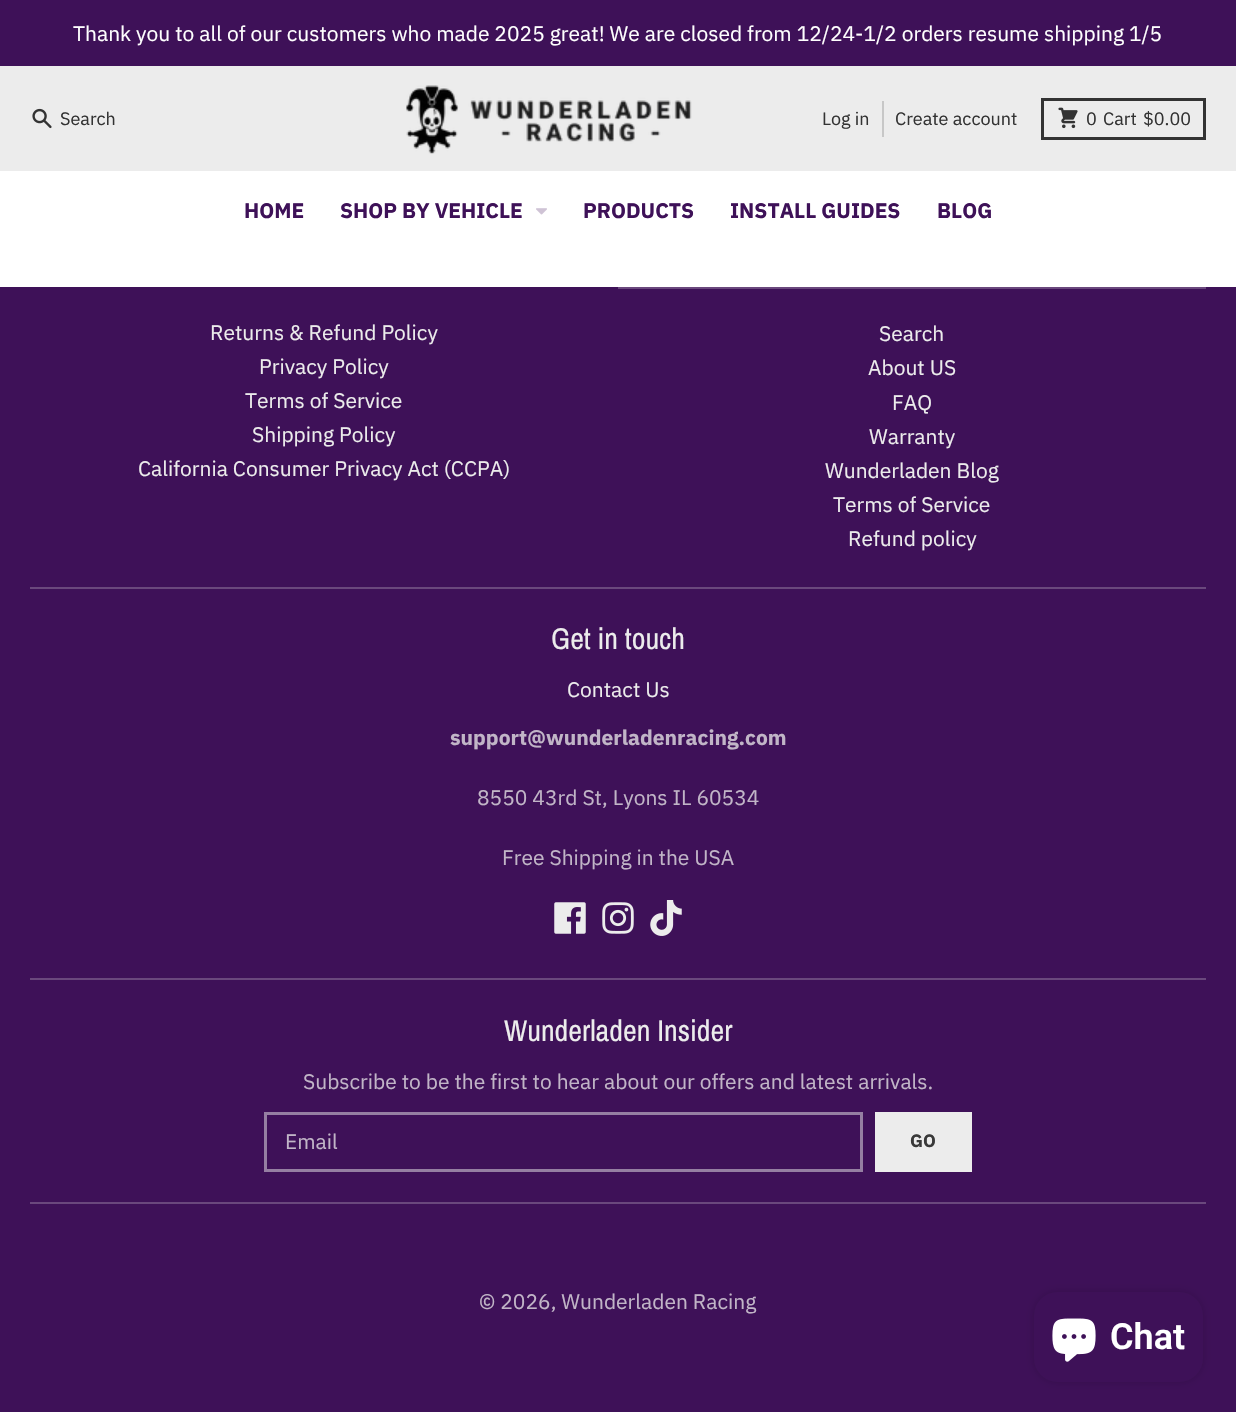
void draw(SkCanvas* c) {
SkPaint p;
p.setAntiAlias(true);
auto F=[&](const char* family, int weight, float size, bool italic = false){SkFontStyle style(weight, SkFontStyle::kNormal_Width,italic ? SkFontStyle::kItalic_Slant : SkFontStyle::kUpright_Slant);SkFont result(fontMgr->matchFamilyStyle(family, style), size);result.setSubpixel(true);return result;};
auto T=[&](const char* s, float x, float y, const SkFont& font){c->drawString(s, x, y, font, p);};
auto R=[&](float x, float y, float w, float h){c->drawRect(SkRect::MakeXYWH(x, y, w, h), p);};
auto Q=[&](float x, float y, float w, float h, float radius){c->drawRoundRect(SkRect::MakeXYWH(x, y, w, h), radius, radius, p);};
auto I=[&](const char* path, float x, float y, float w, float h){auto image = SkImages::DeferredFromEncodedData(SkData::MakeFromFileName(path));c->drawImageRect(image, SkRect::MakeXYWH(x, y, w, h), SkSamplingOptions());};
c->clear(0xff3e1158);
auto f1 = F("IBM Plex Sans",400,21);
p.setColor(0xffffffff);
T("Thank you to all of our customers who made 2025 great! We are closed from 12/24-1/2 orders resume shipping 1/5",73,41,f1);
p.setColor(0xffececec);
R(0,66,1236,105);
I("1.png",32,108,20,21);
auto f2 = F("IBM Plex Sans",400,18);
p.setColor(0xff333333);
T("Search",60,125,f2);
I("2.png",406,85,286,69);
T("Log in",822,125,f2);
p.setColor(0xffc7c7c7);
R(882,101,2,36);
p.setColor(0xff333333);
T("Create account",895,125,f2);
p.setStroke(true);
p.setStrokeWidth(3);
c->drawRect(SkRect::MakeXYWH(1042.5,99.5,162,39),p);
I("3.png",1058,107,20,22);
p.setStroke(false);
T("0",1086,125,f2);
T("Cart",1103,125,f2);
T("$0.00",1143,125,f2);
p.setColor(0xffffffff);
R(0,171,1236,116);
auto f3 = F("IBM Plex Sans",700,21);
p.setColor(0xff3e1158);
T("HOME",244,218,f3);
T("SHOP BY VEHICLE",340,218,f3);
I("4.png",536,208,11,7);
T("PRODUCTS",583,218,f3);
T("INSTALL GUIDES",730,218,f3);
T("BLOG",937,218,f3);
p.setColor(0xffececec);
T("Returns & Refund Policy",210,340,f1);
T("Privacy Policy",259,374,f1);
T("Terms of Service",245,408,f1);
T("Shipping Policy",252,442,f1);
T("California Consumer Privacy Act (CCPA)",138,476,f1);
p.setColor(0xff6a487d);
R(618,287,588,2);
p.setColor(0xffececec);
T("Search",879,341,f1);
T("About US",868,375,f1);
T("FAQ",892,410,f1);
T("Warranty",869,444,f1);
T("Wunderladen Blog",825,478,f1);
T("Terms of Service",833,512,f1);
T("Refund policy",848,546,f1);
p.setColor(0xff6a487d);
R(30,587,1176,2);
auto f4 = F("Archivo Narrow",400,30);
p.setColor(0xffececec);
T("Get in touch",551,649,f4);
T("Contact Us",567,697,f1);
p.setColor(0xffc1b5c7);
T("support@wunderladenracing.com",450,745,f3);
T("8550 43rd St, Lyons IL 60534",477,805,f1);
T("Free Shipping in the USA",502,865,f1);
I("5.png",554,902,32,32);
I("6.png",602,902,32,32);
I("7.png",650,900,32,36);
p.setColor(0xff6a487d);
R(30,978,1176,2);
p.setColor(0xffececec);
T("Wunderladen Insider",504,1041,f4);
p.setColor(0xffc1b5c7);
T("Subscribe to be the first to hear about our offers and latest arrivals.",303,1089,f1);
p.setStroke(true);
p.setColor(0xff957fa2);
c->drawRect(SkRect::MakeXYWH(265.5,1113.5,596,57),p);
p.setStroke(false);
p.setColor(0xffc1b5c7);
T("Email",285,1149,f1);
p.setColor(0xffececec);
R(875,1112,97,60);
auto f5 = F("IBM Plex Sans",700,18);
p.setColor(0xff393939);
T("GO",910,1147,f5);
p.setColor(0xff6a487d);
R(30,1202,1176,2);
p.setColor(0xffc1b5c7);
T("© 2026, Wunderladen Racing",479,1309,f1);
p.setColor(0x26000000);
p.setMaskFilter(SkMaskFilter::MakeBlur(kNormal_SkBlurStyle, 4));
c->drawRoundRect(SkRect::MakeXYWH(1034,1292,169,90),24,24,p);
p.setMaskFilter(nullptr);
p.setColor(0xff3e1158);
Q(1034,1292,169,90,24);
I("8.png",1052,1318,44,44);
auto f6 = F("Roboto",600,36);
p.setColor(0xffffffff);
T("Chat",1110,1349,f6);
}
